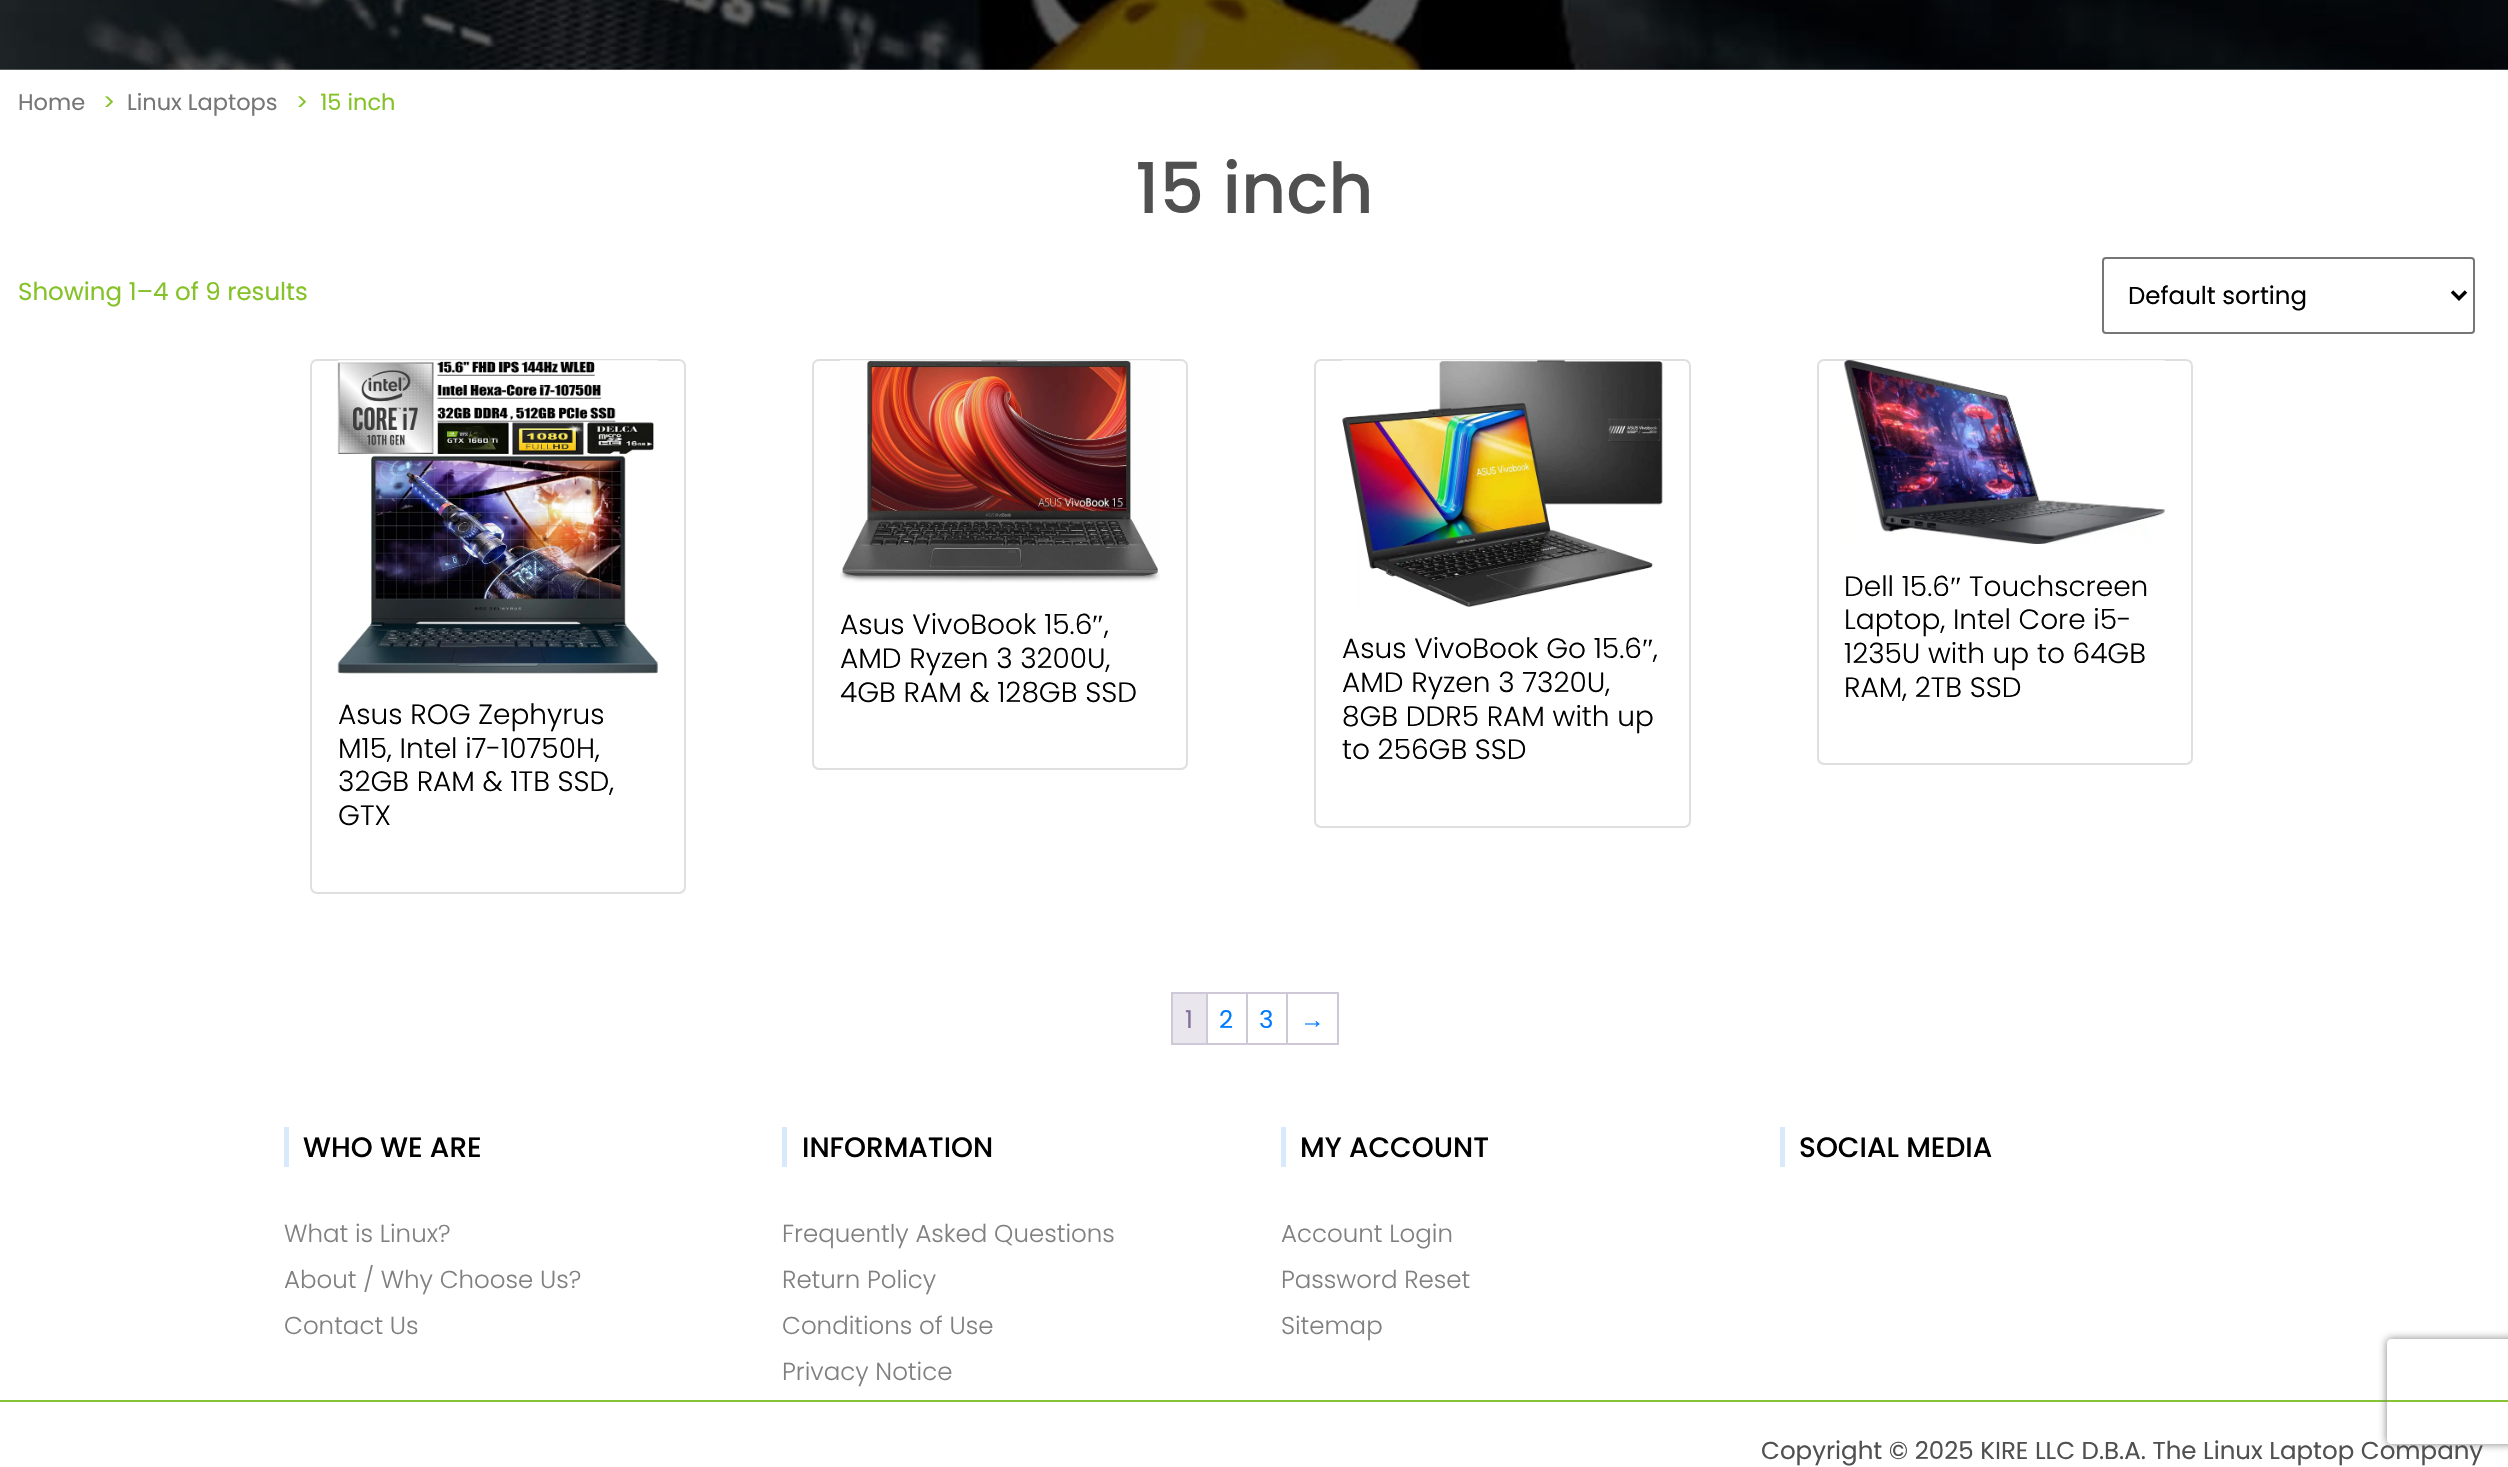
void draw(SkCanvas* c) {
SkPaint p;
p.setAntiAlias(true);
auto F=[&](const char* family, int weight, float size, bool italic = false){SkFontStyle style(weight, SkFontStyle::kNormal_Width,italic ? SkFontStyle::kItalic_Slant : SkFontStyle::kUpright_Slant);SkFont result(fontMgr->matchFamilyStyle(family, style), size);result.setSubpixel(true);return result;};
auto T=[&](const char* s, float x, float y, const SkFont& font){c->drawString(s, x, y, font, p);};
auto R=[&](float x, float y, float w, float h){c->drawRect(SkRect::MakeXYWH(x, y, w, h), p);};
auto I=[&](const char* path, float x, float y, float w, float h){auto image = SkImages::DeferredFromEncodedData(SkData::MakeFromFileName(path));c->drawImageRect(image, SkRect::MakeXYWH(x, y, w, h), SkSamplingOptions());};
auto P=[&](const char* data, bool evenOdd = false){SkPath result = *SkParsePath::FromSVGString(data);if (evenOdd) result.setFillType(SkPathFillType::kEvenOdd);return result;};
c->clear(0xffffffff);
I("1.png",0,0,2508,70);
auto f1 = F("Poppins",400,22.5);
p.setColor(0xff767676);
T("Home",18,110,f1);
p.setColor(0xff85c227);
T(">",103,110,f1);
p.setColor(0xff767676);
T("Linux Laptops",127,110,f1);
p.setColor(0xff85c227);
T(">  15 inch",296,110,f1);
auto f2 = F("Poppins",500,70);
p.setColor(0xff505050);
T("15 inch",1135,213,f2);
auto f3 = F("Poppins",400,24.5);
p.setColor(0xff85c227);
T("Showing 1–4 of 9 results",18,300,f3);
p.setStroke(true);
p.setStrokeWidth(2);
p.setColor(0xff767676);
c->drawRoundRect(SkRect::MakeXYWH(2103,258,371,75),3,3,p);
p.setStrokeWidth(3.5);
p.setColor(0xff000000);
c->drawPath(P("M2452 291.5l7 7l7-7"),p);
p.setStroke(false);
T("Default sorting",2128,304,f3);
p.setStroke(true);
p.setStrokeWidth(2);
p.setColor(0xffdfdfdf);
c->drawRoundRect(SkRect::MakeXYWH(311,360,374,533),6,6,p);
I("2.png",337,360,321,314);
auto f4 = F("Poppins",300,28);
p.setStroke(false);
p.setColor(0xff000000);
T("Asus ROG Zephyrus",338,724,f4);
T("M15, Intel i7-10750H,",338,758,f4);
T("32GB RAM & 1TB SSD,",338,791,f4);
T("GTX",338,825,f4);
p.setStroke(true);
p.setColor(0xffdfdfdf);
c->drawRoundRect(SkRect::MakeXYWH(813,360,374,409),6,6,p);
I("3.png",840,360,321,223);
p.setStroke(false);
p.setColor(0xff000000);
T("Asus VivoBook 15.6",840,634,f4);
auto f5 = F("Liberation Serif",400,28);
T("″",1092,634,f5);
T(",",1104,634,f4);
T("AMD Ryzen 3 3200U,",840,668,f4);
T("4GB RAM & 128GB SSD",840,702,f4);
p.setStroke(true);
p.setColor(0xffdfdfdf);
c->drawRoundRect(SkRect::MakeXYWH(1315,360,375,467),6,6,p);
I("4.png",1342,360,321,247);
p.setStroke(false);
p.setColor(0xff000000);
T("Asus VivoBook Go 15.6",1342,658,f4);
T("″",1642,658,f5);
T(",",1653,658,f4);
T("AMD Ryzen 3 7320U,",1342,692,f4);
T("8GB DDR5 RAM with up",1342,726,f4);
T("to 256GB SSD",1342,759,f4);
p.setStroke(true);
p.setColor(0xffdfdfdf);
c->drawRoundRect(SkRect::MakeXYWH(1818,360,374,404),6,6,p);
I("5.png",1844,360,321,184);
p.setStroke(false);
p.setColor(0xff000000);
T("Dell 15.6",1844,596,f4);
T("″",1950,596,f5);
T("Touchscreen",1969,596,f4);
T("Laptop, Intel Core i5-",1844,629,f4);
T("1235U with up to 64GB",1844,663,f4);
T("RAM, 2TB SSD",1844,697,f4);
p.setColor(0xffcfc8d8);
R(1171,992,168,2);
R(1171,1043,168,2);
R(1171,992,2,53);
R(1206,994,2,49);
p.setColor(0xffe9e6ed);
R(1173,994,33,49);
p.setColor(0xff816f98);
T("1",1185,1028,f3);
p.setColor(0xffcfc8d8);
R(1246,994,2,49);
p.setColor(0xff007bff);
T("2",1219,1028,f3);
p.setColor(0xffcfc8d8);
R(1286,994,2,49);
p.setColor(0xff007bff);
T("3",1259,1028,f3);
p.setColor(0xffcfc8d8);
R(1337,994,2,49);
auto f6 = F("Liberation Serif",400,24.5);
p.setColor(0xff007bff);
T("→",1300,1028,f6);
p.setColor(0xffd9e9fc);
R(284,1127,5,40);
auto f7 = F("Poppins",500,28);
p.setColor(0xff000000);
T("WHO WE ARE",303,1157,f7);
auto f8 = F("Poppins",300,24.5);
p.setColor(0xff808080);
T("What is Linux?",284,1242,f8);
T("About / Why Choose Us?",284,1288,f8);
T("Contact Us",284,1334,f8);
p.setColor(0xffd9e9fc);
R(782,1127,5,40);
p.setColor(0xff000000);
T("INFORMATION",802,1157,f7);
p.setColor(0xff808080);
T("Frequently Asked Questions",782,1242,f8);
T("Return Policy",782,1288,f8);
T("Conditions of Use",782,1334,f8);
T("Privacy Notice",782,1380,f8);
p.setColor(0xffd9e9fc);
R(1281,1127,5,40);
p.setColor(0xff000000);
T("MY ACCOUNT",1300,1157,f7);
p.setColor(0xff808080);
T("Account Login",1281,1242,f8);
T("Password Reset",1281,1288,f8);
T("Sitemap",1281,1334,f8);
p.setColor(0xffd9e9fc);
R(1780,1127,5,40);
p.setColor(0xff000000);
T("SOCIAL MEDIA",1799,1157,f7);
p.setColor(0xff85c335);
R(0,1400,2508,2);
c->save();
c->clipPath(P("M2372 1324h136v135h-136zm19 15h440c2 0 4 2 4 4v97c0 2-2 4-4 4h-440c-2 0-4-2-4-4v-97c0-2 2-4 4-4z",true),true);
p.setColor(0xff808080);
p.setMaskFilter(SkMaskFilter::MakeBlur(kNormal_SkBlurStyle, 4.5));
c->drawRoundRect(SkRect::MakeXYWH(2387,1339,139,105),4,4,p);
p.setMaskFilter(nullptr);
c->restore();
p.setColor(0xff505050);
T("Copyright © 2025 KIRE LLC D.B.A. The Linux Laptop Company",1761,1459,f3);
}
